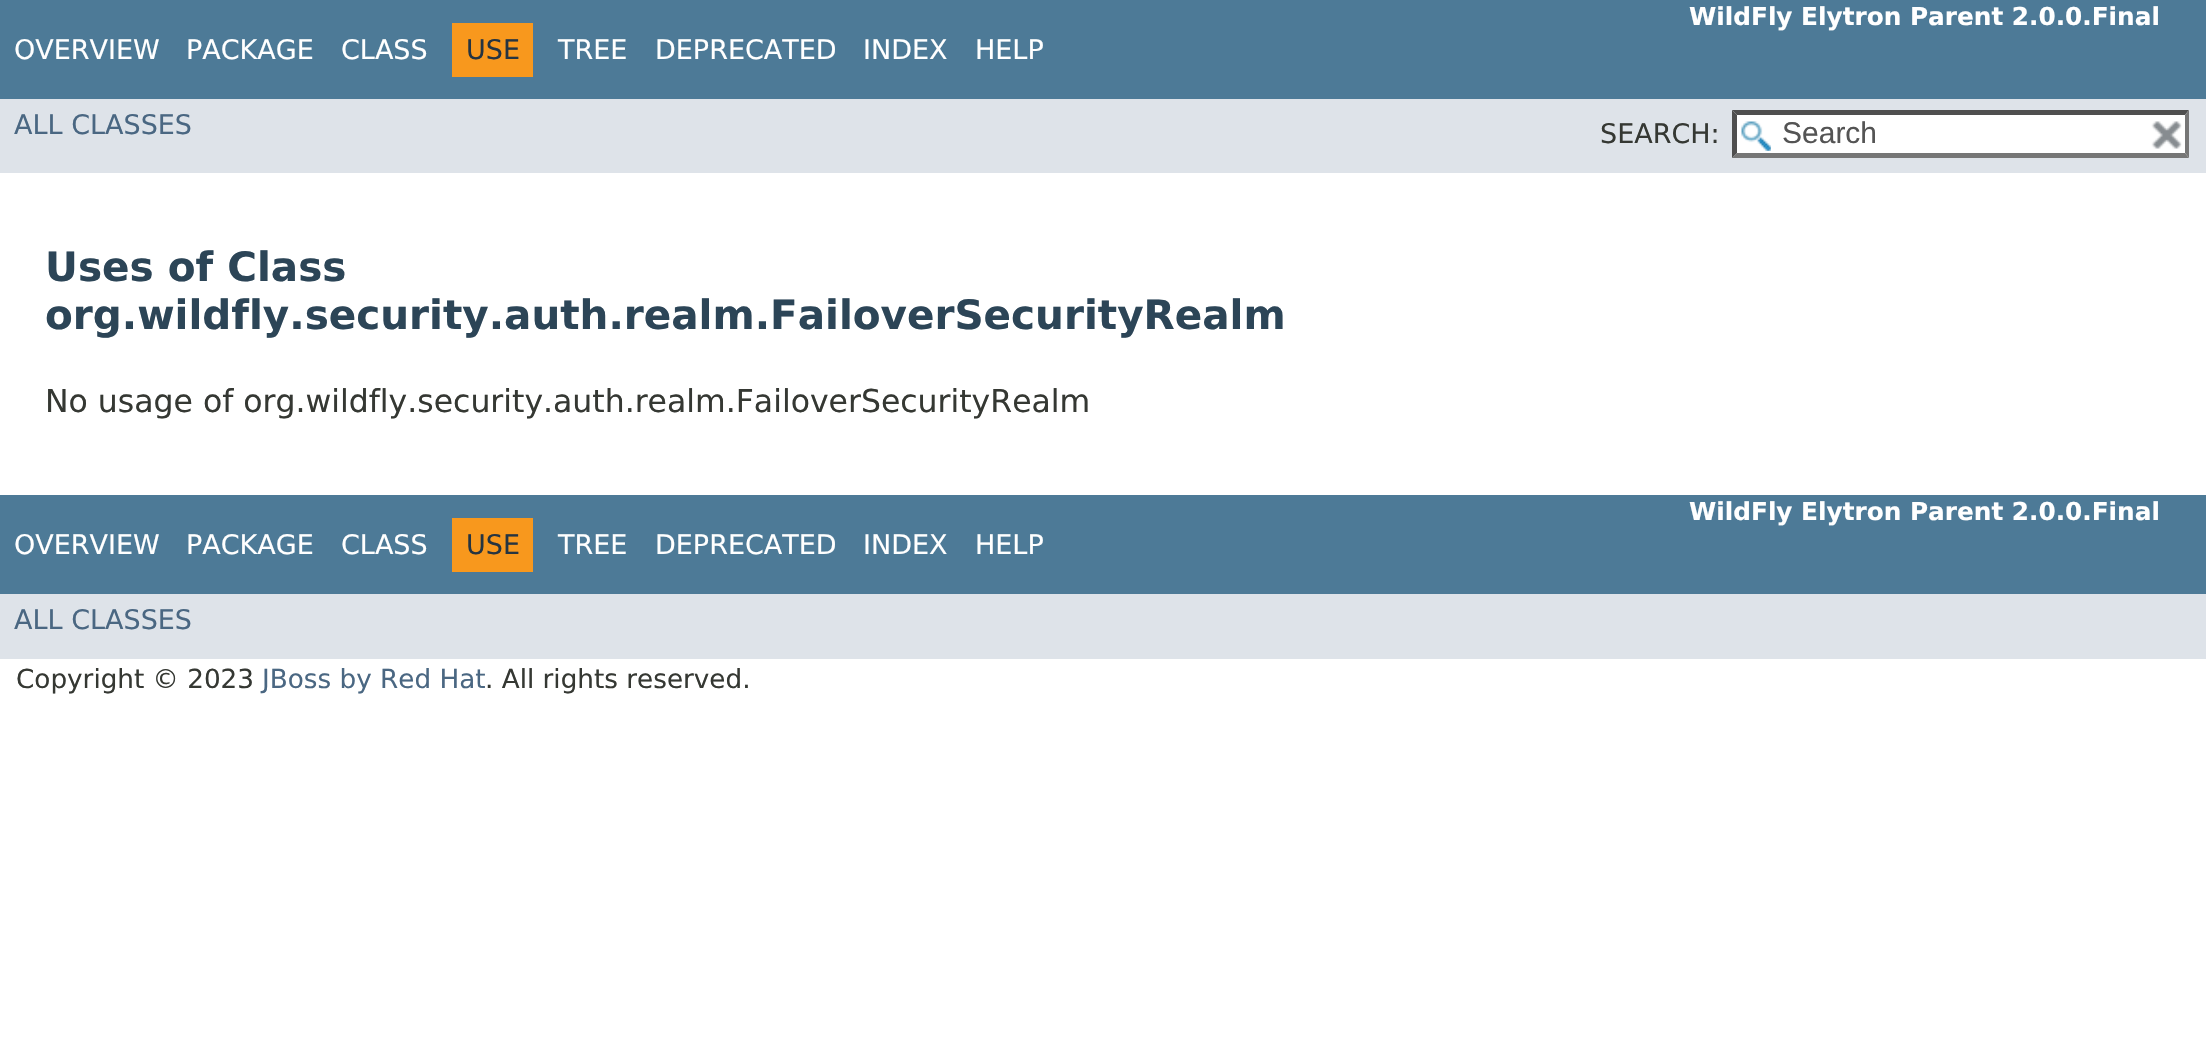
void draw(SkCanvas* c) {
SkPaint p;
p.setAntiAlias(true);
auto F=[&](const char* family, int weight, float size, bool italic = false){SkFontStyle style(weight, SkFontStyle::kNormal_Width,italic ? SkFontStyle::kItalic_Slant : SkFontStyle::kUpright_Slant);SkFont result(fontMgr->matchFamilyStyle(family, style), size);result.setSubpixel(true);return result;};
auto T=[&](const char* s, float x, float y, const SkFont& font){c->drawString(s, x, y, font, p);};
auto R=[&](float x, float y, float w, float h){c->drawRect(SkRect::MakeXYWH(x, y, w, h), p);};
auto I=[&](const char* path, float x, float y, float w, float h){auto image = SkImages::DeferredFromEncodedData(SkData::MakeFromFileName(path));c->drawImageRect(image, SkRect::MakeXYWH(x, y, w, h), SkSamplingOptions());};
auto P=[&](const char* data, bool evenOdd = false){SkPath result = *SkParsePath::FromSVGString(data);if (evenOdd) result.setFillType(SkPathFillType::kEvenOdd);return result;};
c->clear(0xffffffff);
p.setColor(0xff4d7a97);
R(0,0,2206,99);
auto f1 = F("DejaVu Sans",700,24.75);
p.setColor(0xffffffff);
T("WildFly Elytron Parent 2.0.0.Final",1689,25,f1);
auto f2 = F("DejaVu Sans",400,27);
T("OVERVIEW",14,59,f2);
T("PACKAGE",186,59,f2);
T("CLASS",341,59,f2);
p.setColor(0xfff8981d);
R(452,23,81,54);
p.setColor(0xff253441);
T("USE",466,59,f2);
p.setColor(0xffffffff);
T("TREE",558,59,f2);
T("DEPRECATED",655,59,f2);
T("INDEX",863,59,f2);
T("HELP",975,59,f2);
p.setColor(0xffdee3e9);
R(0,99,2206,74);
p.setColor(0xff4a6782);
T("ALL CLASSES",14,134,f2);
p.setColor(0xff353833);
T("SEARCH:",1600,143,f2);
p.setColor(0xffffffff);
R(1733,110,456,48);
I("1.png",1741,121,30,30);
p.setColor(0xff4f4f4f);
c->drawPath(P("M1732 110h457l-4 5h-448z"),p);
p.setColor(0xff767676);
c->drawPath(P("M2189 110v48l-4-5v-38z"),p);
c->drawPath(P("M2189 158h-457l5-5h448z"),p);
p.setColor(0xff4f4f4f);
c->drawPath(P("M1732 158v-48l5 5v38z"),p);
auto f3 = F("Liberation Sans",400,30);
p.setColor(0xff545454);
T("Search",1782,143,f3);
I("2.png",2151,121,31,28);
auto f4 = F("DejaVu Sans",700,40.5);
p.setColor(0xff2c4557);
T("Uses of Class",45,281,f4);
T("org.wildfly.security.auth.realm.FailoverSecurityRealm",45,329,f4);
auto f5 = F("DejaVu Sans",400,31.5);
p.setColor(0xff353833);
T("No usage of org.wildfly.security.auth.realm.FailoverSecurityRealm",45,412,f5);
p.setColor(0xff4d7a97);
R(0,495,2206,99);
p.setColor(0xffffffff);
T("WildFly Elytron Parent 2.0.0.Final",1689,520,f1);
T("OVERVIEW",14,554,f2);
T("PACKAGE",186,554,f2);
T("CLASS",341,554,f2);
p.setColor(0xfff8981d);
R(452,518,81,54);
p.setColor(0xff253441);
T("USE",466,554,f2);
p.setColor(0xffffffff);
T("TREE",558,554,f2);
T("DEPRECATED",655,554,f2);
T("INDEX",863,554,f2);
T("HELP",975,554,f2);
p.setColor(0xffdee3e9);
R(0,594,2206,65);
p.setColor(0xff4a6782);
T("ALL CLASSES",14,629,f2);
auto f6 = F("DejaVu Sans",400,26.25);
p.setColor(0xff353833);
T("Copyright © 2023",16,688,f6);
p.setColor(0xff4a6782);
T("JBoss by Red Hat",262,688,f6);
p.setColor(0xff353833);
T(". All rights reserved.",485,688,f6);
}
